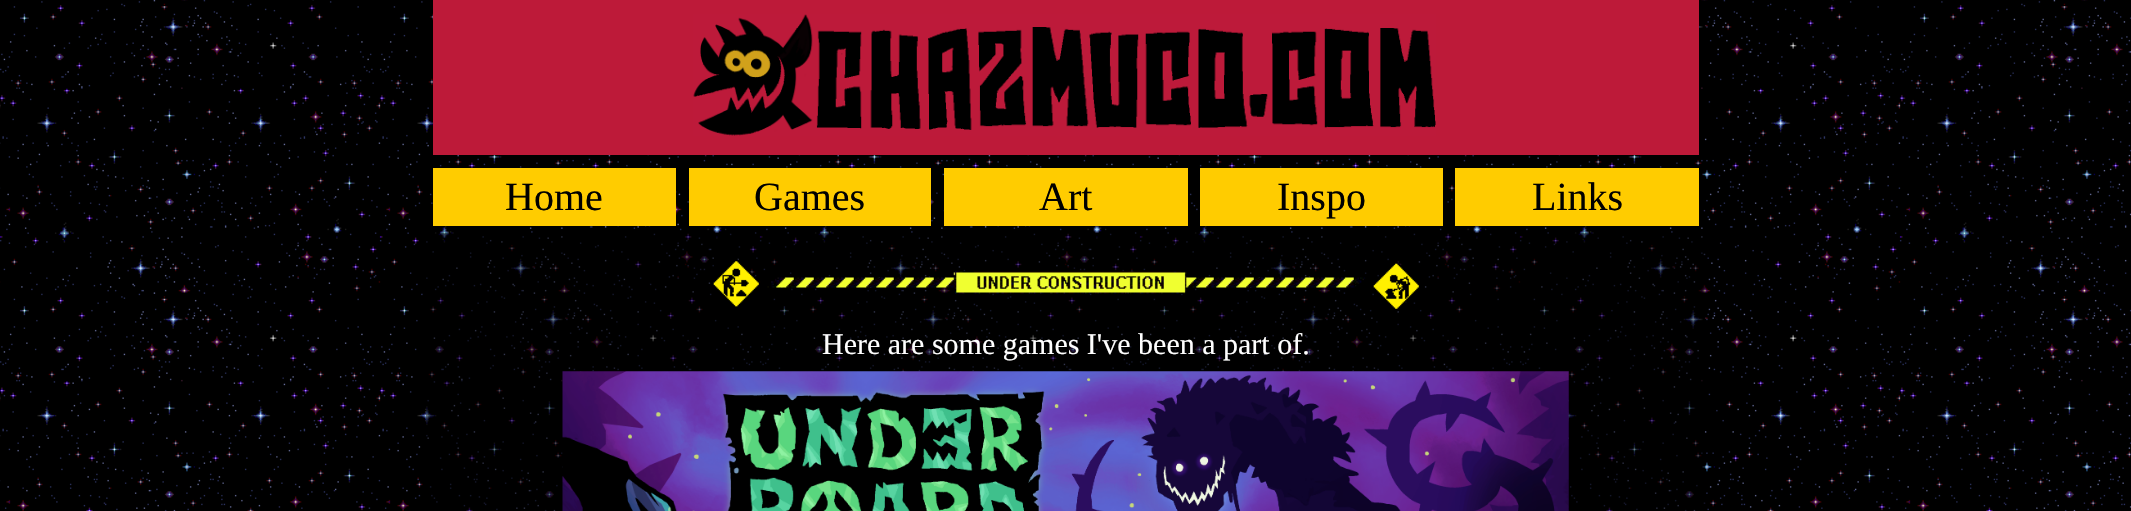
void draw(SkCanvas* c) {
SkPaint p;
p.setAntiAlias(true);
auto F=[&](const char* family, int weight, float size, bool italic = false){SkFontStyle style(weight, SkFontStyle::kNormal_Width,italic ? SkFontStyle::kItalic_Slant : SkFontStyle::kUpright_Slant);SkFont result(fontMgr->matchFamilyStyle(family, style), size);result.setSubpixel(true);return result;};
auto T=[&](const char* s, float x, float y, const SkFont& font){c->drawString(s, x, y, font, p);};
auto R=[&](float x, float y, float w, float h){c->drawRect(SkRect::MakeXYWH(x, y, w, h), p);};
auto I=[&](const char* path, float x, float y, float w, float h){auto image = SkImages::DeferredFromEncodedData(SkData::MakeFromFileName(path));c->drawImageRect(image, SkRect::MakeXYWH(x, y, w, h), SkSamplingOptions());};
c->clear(0xffffffff);
I("1.png",0,0,2131,511);
p.setColor(0xffbd1a39);
R(433,0,1266,155);
I("2.png",693,14,743,122);
p.setColor(0xffffcc00);
R(433,168,243,58);
auto f1 = F("Liberation Serif",400,40);
p.setColor(0xff000000);
T("Home",505,210,f1);
p.setColor(0xffffcc00);
R(689,168,242,58);
p.setColor(0xff000000);
T("Games",754,210,f1);
p.setColor(0xffffcc00);
R(944,168,244,58);
p.setColor(0xff000000);
T("Art",1039,210,f1);
p.setColor(0xffffcc00);
R(1200,168,243,58);
p.setColor(0xff000000);
T("Inspo",1277,210,f1);
p.setColor(0xffffcc00);
R(1455,168,244,58);
p.setColor(0xff000000);
T("Links",1532,210,f1);
p.setColor(0x80000000);
R(426,233,1279,278);
I("3.png",713,259,706,53);
auto f2 = F("Liberation Serif",400,30);
p.setColor(0xffffffff);
T("Here are some games I've been a part of.",822,354,f2);
I("4.png",562,371,1007,140);
}
